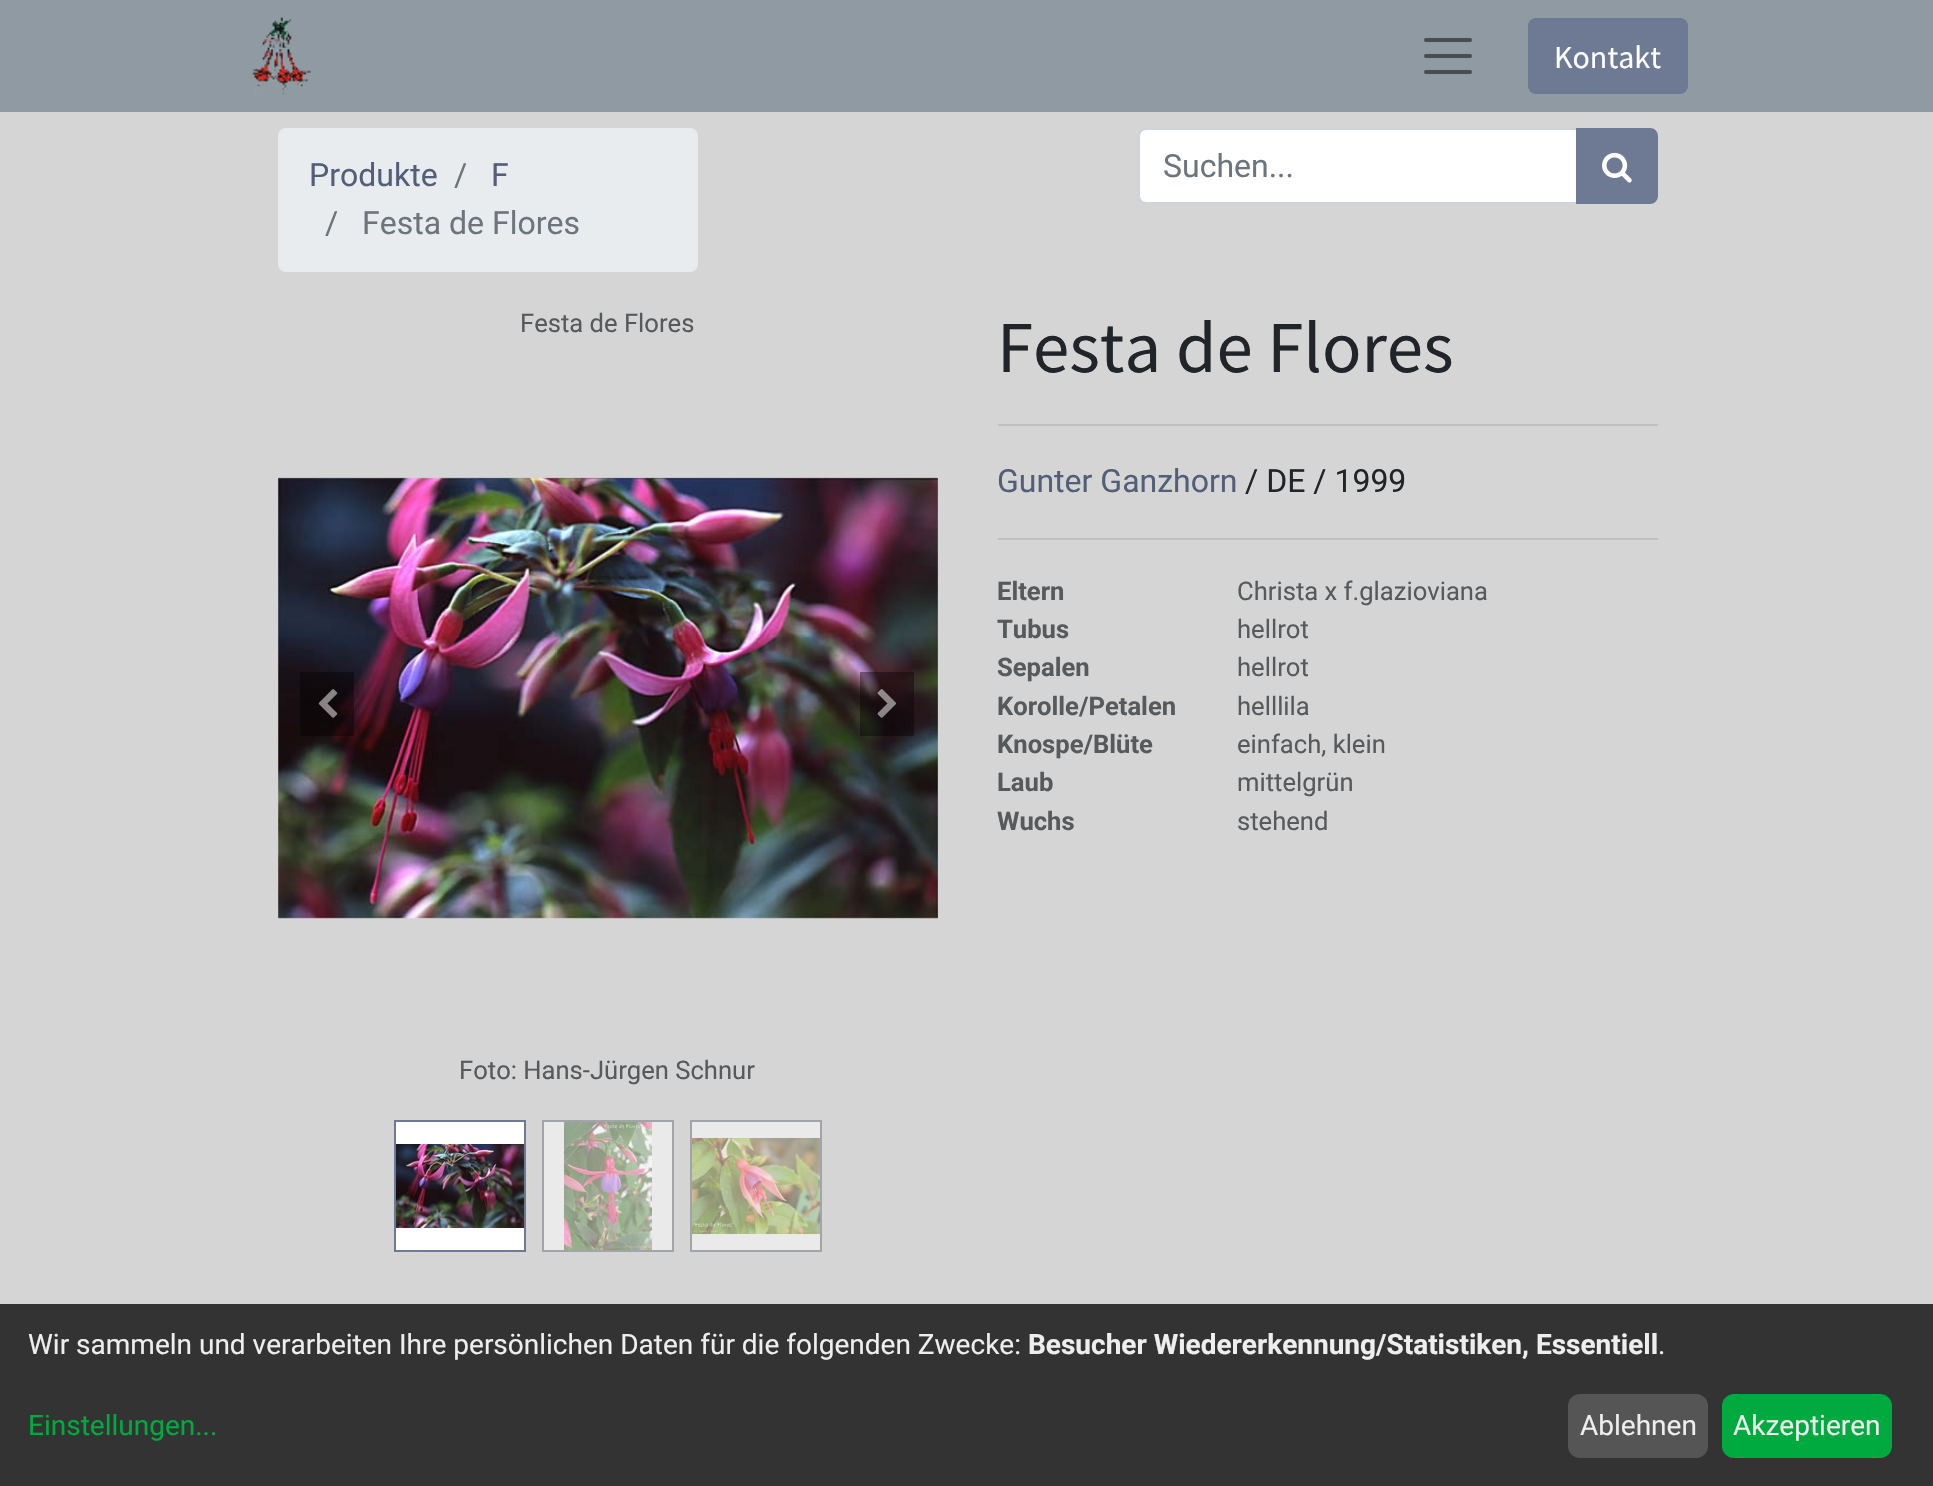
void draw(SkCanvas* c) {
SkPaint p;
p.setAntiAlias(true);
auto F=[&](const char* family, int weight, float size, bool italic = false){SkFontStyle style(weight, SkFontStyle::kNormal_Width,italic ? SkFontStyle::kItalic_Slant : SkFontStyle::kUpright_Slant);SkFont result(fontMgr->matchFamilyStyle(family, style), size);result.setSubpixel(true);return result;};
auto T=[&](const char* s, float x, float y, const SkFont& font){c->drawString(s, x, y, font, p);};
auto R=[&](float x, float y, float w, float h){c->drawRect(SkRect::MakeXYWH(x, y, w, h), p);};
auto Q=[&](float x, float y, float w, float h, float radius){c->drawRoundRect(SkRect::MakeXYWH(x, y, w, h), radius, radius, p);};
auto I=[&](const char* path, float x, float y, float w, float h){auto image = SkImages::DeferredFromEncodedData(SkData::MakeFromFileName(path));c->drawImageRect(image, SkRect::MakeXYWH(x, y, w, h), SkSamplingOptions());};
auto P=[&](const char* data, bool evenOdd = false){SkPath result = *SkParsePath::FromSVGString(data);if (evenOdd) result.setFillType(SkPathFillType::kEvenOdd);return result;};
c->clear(0xffd5d5d5);
p.setColor(0xff8f9aa2);
R(0,0,1933,112);
I("1.png",252,17,60,78);
p.setStroke(true);
p.setStrokeWidth(4);
p.setStrokeCap(SkPaint::kRound_Cap);
p.setColor(0xff484d51);
c->drawPath(P("M1426 40h44m-44 16h44m-44 16h44"),p);
p.setStroke(false);
p.setColor(0xff6e7993);
c->drawRoundRect(SkRect::MakeXYWH(1529,19,158,74),7,7,p);
p.setStroke(true);
p.setStrokeWidth(2);
p.setStrokeCap(SkPaint::kButt_Cap);
c->drawRoundRect(SkRect::MakeXYWH(1529,19,158,74),7,7,p);
auto f1 = F("Source Sans Pro",400,32);
p.setStroke(false);
p.setColor(0xffffffff);
T("Kontakt",1554,68,f1);
p.setColor(0xffe9ecef);
Q(278,128,420,144,8);
auto f2 = F("Roboto",400,32);
p.setColor(0xff535f78);
T("Produkte",309,186,f2);
p.setColor(0xff6c757d);
T("/",454,186,f2);
p.setColor(0xff535f78);
T("F",491,186,f2);
p.setColor(0xff6c757d);
T("/",325,234,f2);
T("Festa de Flores",362,234,f2);
p.setColor(0xffffffff);
c->drawPath(P("M1146 129h431v74h-431c-4 0-7-3-7-7v-60c0-4 3-7 7-7z"),p);
p.setStroke(true);
p.setColor(0xffced4da);
c->drawPath(P("M1146 129h431v74h-431c-4 0-7-3-7-7v-60c0-4 3-7 7-7z"),p);
p.setStroke(false);
p.setColor(0xff6c757d);
T("Suchen...",1163,177,f2);
p.setColor(0xff6e7993);
c->drawPath(P("M1577 129h73c4 0 7 3 7 7v60c0 4-3 7-7 7h-73z"),p);
p.setStroke(true);
c->drawPath(P("M1577 129h73c4 0 7 3 7 7v60c0 4-3 7-7 7h-73z"),p);
I("2.png",1602,152,30,31);
I("4.png",278,477,660,442);
p.setStroke(false);
p.setColor(0x66000000);
R(300,672,54,64);
I("3.png",318,689,20,29);
auto f3 = F("Roboto",400,25.6);
p.setColor(0xff575a5d);
T("Festa de Flores",520,332,f3);
T("Foto: Hans-Jürgen Schnur",459,1079,f3);
p.setColor(0x66000000);
R(860,672,54,64);
I("5.png",877,689,20,29);
p.setColor(0xffffffff);
c->drawRect(SkRect::MakeXYWH(395,1121,130,130),p);
p.setStroke(true);
p.setColor(0xff6e7993);
c->drawRect(SkRect::MakeXYWH(395,1121,130,130),p);
I("6.png",396,1144,128,84);
p.setStroke(false);
p.setColor(0xffeaeaea);
c->drawRect(SkRect::MakeXYWH(543,1121,130,130),p);
p.setStroke(true);
p.setColor(0xffa1a5a9);
c->drawRect(SkRect::MakeXYWH(543,1121,130,130),p);
I("7.png",564,1122,88,128);
p.setStroke(false);
p.setColor(0xffeaeaea);
c->drawRect(SkRect::MakeXYWH(691,1121,130,130),p);
p.setStroke(true);
p.setColor(0xffa1a5a9);
c->drawRect(SkRect::MakeXYWH(691,1121,130,130),p);
I("8.png",692,1138,128,96);
auto f4 = F("Source Sans Pro",400,73);
p.setStroke(false);
p.setColor(0xff212529);
T("Festa de Flores",997,372,f4);
p.setColor(0xffc0c0c0);
R(998,424,660,2);
p.setColor(0xff535f78);
T("Gunter Ganzhorn",997,492,f2);
p.setColor(0xff212529);
T("/ DE / 1999",1245,492,f2);
p.setColor(0xffc0c0c0);
R(998,538,660,2);
auto f5 = F("Roboto",700,25.6);
p.setColor(0xff575a5d);
T("Eltern",997,600,f5);
T("Christa x f.glazioviana",1237,600,f3);
T("Tubus",997,638,f5);
T("hellrot",1237,638,f3);
T("Sepalen",997,676,f5);
T("hellrot",1237,676,f3);
T("Korolle/Petalen",997,715,f5);
T("helllila",1237,715,f3);
T("Knospe/Blüte",997,753,f5);
T("einfach, klein",1237,753,f3);
T("Laub",997,791,f5);
T("mittelgrün",1237,791,f3);
T("Wuchs",997,830,f5);
T("stehend",1237,830,f3);
p.setColor(0xff333333);
R(0,1304,1933,182);
auto f6 = F("Roboto",400,28);
p.setColor(0xffeeeeee);
T("Wir sammeln und verarbeiten Ihre persönlichen Daten für die folgenden Zwecke:",28,1354,f6);
auto f7 = F("Roboto",700,28);
T("Besucher Wiedererkennung/Statistiken, Essentiell",1028,1354,f7);
T(".",1658,1354,f6);
p.setColor(0xff00aa3e);
T("Einstellungen...",28,1435,f6);
p.setColor(0xff555555);
Q(1568,1394,140,64,12);
p.setColor(0xffeeeeee);
T("Ablehnen",1580,1435,f6);
p.setColor(0xff00aa3e);
Q(1722,1394,170,64,12);
p.setColor(0xffeeeeee);
T("Akzeptieren",1733,1435,f6);
}
